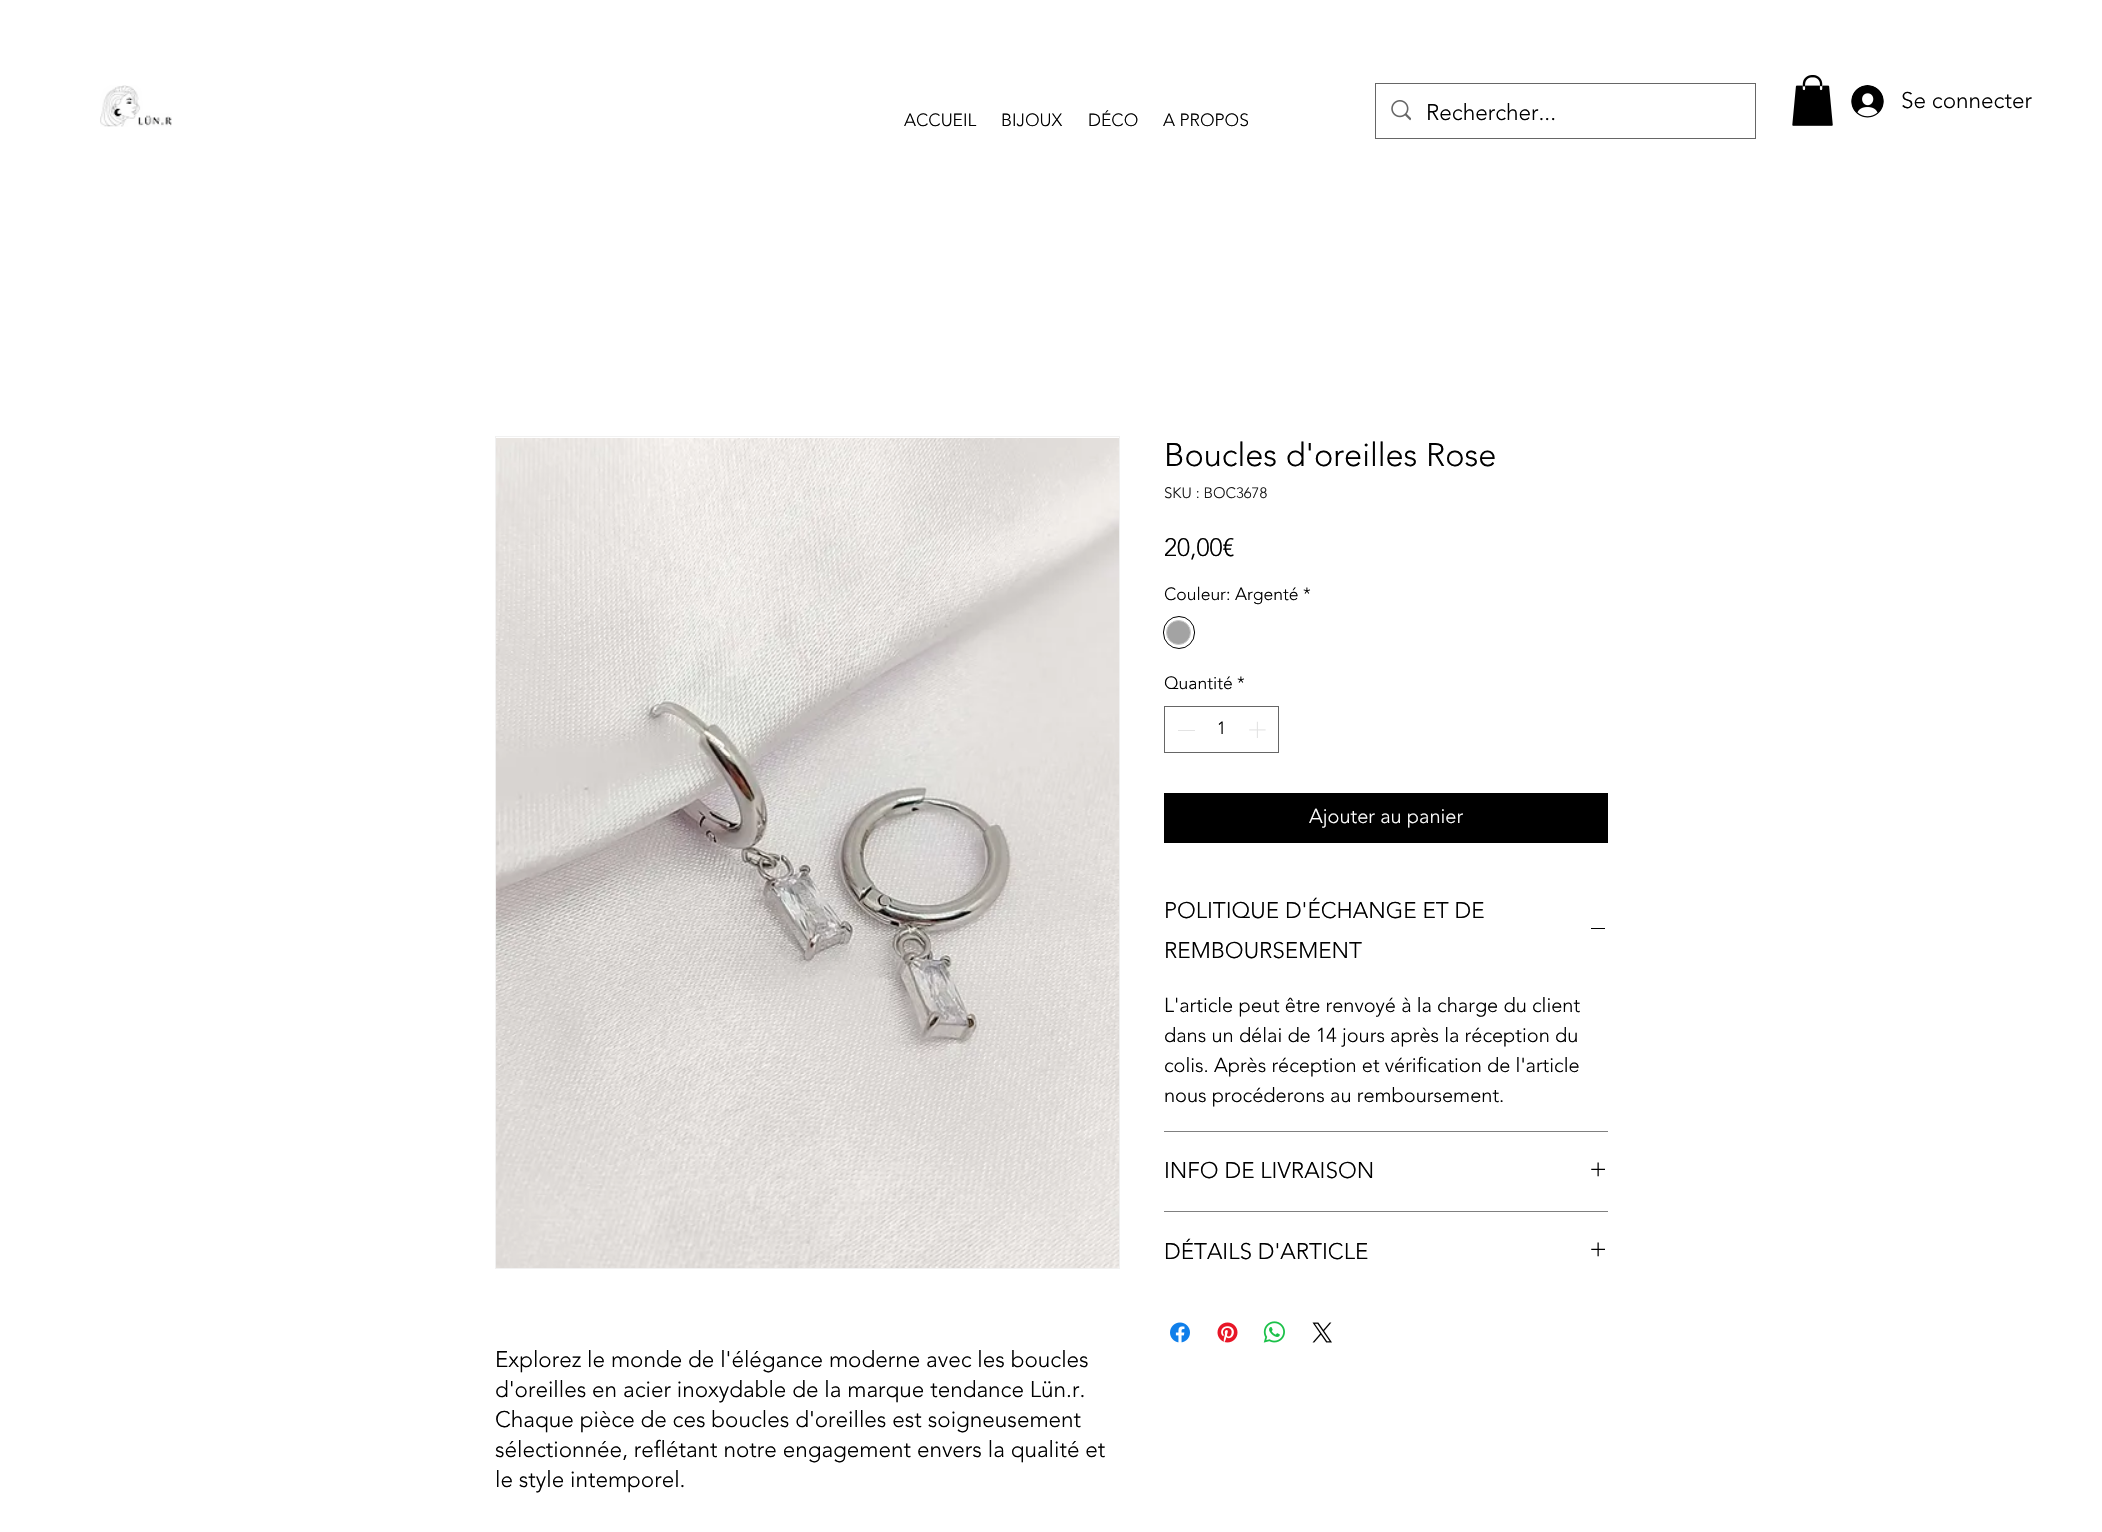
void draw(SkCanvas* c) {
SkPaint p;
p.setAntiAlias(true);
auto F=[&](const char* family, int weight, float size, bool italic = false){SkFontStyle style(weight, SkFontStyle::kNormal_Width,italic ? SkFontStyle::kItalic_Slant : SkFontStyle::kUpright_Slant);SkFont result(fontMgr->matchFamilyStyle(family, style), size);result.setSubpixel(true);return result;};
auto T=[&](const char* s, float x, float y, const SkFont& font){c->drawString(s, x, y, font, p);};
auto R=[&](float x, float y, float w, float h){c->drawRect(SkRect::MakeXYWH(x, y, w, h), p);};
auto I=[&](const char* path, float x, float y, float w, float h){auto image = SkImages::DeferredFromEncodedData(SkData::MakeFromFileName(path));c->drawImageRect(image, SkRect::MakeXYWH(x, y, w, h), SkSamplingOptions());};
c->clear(0xffffffff);
I("1.png",100,85,72,42);
I("2.png",1792,75,41,51);
I("3.png",1851,85,33,33);
auto f1 = F("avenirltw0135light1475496",300,22.5);
p.setColor(0xff000000);
T("Se connecter",1901,108,f1);
auto f2 = F("avenirltw0135light1475496",300,17.5);
T("ACCUEIL",904,126,f2);
T("BIJOUX",1001,126,f2);
T("DÉCO",1088,126,f2);
T("A PROPOS",1163,126,f2);
p.setStroke(true);
p.setStrokeWidth(1);
p.setColor(0xff666666);
c->drawRect(SkRect::MakeXYWH(1375.5,83.5,380,55),p);
I("4.png",1391,100,20,21);
p.setStroke(false);
p.setColor(0xff000000);
T("Rechercher...",1426,120,f1);
auto f3 = F("avenirltw0135light1475496",300,32.5);
T("Boucles d'oreilles Rose",1164,466,f3);
auto f4 = F("avenirltw0135light1475496",300,15);
p.setColor(0xff191919);
T("SKU : BOC3678",1164,498,f4);
auto f5 = F("avenirltw0135light1475496",300,25);
p.setColor(0xff000000);
T("20,00€",1164,556,f5);
T("Couleur: Argenté",1164,600,f2);
T("*",1303,600,f2);
p.setStroke(true);
c->drawRoundRect(SkRect::MakeXYWH(1163.5,616.5,31,32),15.5,15.5,p);
p.setStroke(false);
p.setColor(0xffa3a3a3);
c->drawCircle(1178.5,632.5,12,p);
p.setStroke(true);
p.setColor(0xffc9c9c9);
c->drawCircle(1178.5,632.5,12,p);
p.setStroke(false);
p.setColor(0xff000000);
T("Quantité",1164,689,f2);
T("*",1237,689,f2);
p.setStroke(true);
p.setColor(0xff666666);
c->drawRect(SkRect::MakeXYWH(1164.5,706.5,114,46),p);
p.setStroke(false);
p.setColor(0xffe3e3e3);
R(1178,730,17,1);
p.setColor(0xff000000);
T("1",1217,734,f2);
I("5.png",1249,721,17,17);
R(1164,793,444,50);
auto f6 = F("avenirltw0135light1475496",300,20);
p.setColor(0xffffffff);
T("Ajouter au panier",1309,823,f6);
p.setColor(0xff808080);
R(1164,1131,444,1);
p.setColor(0xff000000);
T("POLITIQUE D'ÉCHANGE ET DE",1164,918,f1);
T("REMBOURSEMENT",1164,958,f1);
R(1591,928,14,1);
T("L'article peut être renvoyé à la charge du client",1164,1012,f6);
T("dans un délai de 14 jours après la réception du",1164,1042,f6);
T("colis. Après réception et vérification de l'article",1164,1072,f6);
T("nous procéderons au remboursement.",1164,1102,f6);
p.setColor(0xff808080);
R(1164,1211,444,1);
p.setColor(0xff000000);
T("INFO DE LIVRAISON",1164,1178,f1);
I("6.png",1591,1162,14,15);
T("DÉTAILS D'ARTICLE",1164,1259,f1);
I("6.png",1591,1242,14,15);
I("7.png",1170,1322,20,21);
I("8.png",1217,1322,21,21);
I("9.png",1263,1321,22,22);
I("10.png",1312,1322,20,21);
p.setStroke(true);
p.setColor(0xfff1f1f1);
c->drawRect(SkRect::MakeXYWH(495.5,436.5,624,832),p);
I("11.png",496,438,623,830);
p.setStroke(false);
p.setColor(0xff000000);
T("Explorez le monde de l'élégance moderne avec les boucles",495,1367,f1);
T("d'oreilles en acier inoxydable de la marque tendance Lün.r.",495,1397,f1);
T("Chaque pièce de ces boucles d'oreilles est soigneusement",495,1427,f1);
T("sélectionnée, reflétant notre engagement envers la qualité et",495,1457,f1);
T("le style intemporel.",495,1487,f1);
}
